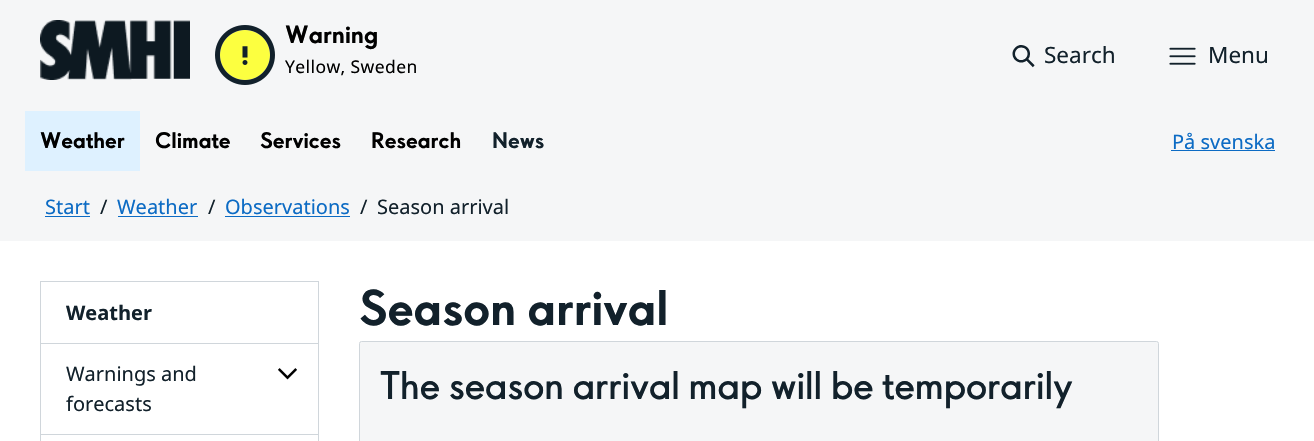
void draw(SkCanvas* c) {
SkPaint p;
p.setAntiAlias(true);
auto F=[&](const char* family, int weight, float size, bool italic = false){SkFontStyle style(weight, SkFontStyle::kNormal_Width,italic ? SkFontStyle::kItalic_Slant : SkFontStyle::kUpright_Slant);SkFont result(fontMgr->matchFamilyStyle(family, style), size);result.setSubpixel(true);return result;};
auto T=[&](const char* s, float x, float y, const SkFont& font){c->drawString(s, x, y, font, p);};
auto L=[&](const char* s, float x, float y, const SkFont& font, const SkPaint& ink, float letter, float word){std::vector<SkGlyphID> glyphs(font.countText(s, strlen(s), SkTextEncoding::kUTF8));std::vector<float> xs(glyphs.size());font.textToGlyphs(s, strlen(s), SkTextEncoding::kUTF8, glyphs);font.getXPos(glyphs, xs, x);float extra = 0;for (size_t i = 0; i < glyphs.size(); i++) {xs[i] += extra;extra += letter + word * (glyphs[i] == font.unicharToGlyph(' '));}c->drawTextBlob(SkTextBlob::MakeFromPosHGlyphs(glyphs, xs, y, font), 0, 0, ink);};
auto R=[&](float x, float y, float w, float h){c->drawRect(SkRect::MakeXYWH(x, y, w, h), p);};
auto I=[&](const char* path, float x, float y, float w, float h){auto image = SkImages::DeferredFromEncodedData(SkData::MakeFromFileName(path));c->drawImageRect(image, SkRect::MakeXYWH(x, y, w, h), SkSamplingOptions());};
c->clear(0xffffffff);
p.setColor(0xfff5f6f7);
R(0,0,1314,241);
I("1.png",40,20,150,60);
I("2.png",215,25,60,60);
auto f1 = F("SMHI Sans",700,25);
p.setColor(0xff000000);
T("Warning",285,43,f1);
auto f2 = F("Noto Sans",400,17.5);
L("Yellow, Sweden",285,73,f2,p,.4,0);
I("3.png",1012,45,23,23);
auto f3 = F("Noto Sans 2",400,22.5);
p.setColor(0xff12212b);
T("Search",1044,63,f3);
I("4.png",1169,47,27,18);
T("Menu",1208,63,f3);
p.setColor(0xffdef1ff);
R(25,111,115,60);
auto f4 = F("SMHI Sans",700,22.5);
p.setColor(0xff000000);
T("Weather",40,148,f4);
T("Climate",155,148,f4);
T("Services",260,148,f4);
T("Research",371,148,f4);
p.setColor(0xff12212b);
T("News",492,148,f4);
auto f5 = F("Noto Sans 2",400,20);
p.setColor(0xff0c6bc4);
T("På svenska",1172,149,f5);
R(1171,150,104,1);
T("Start",45,214,f5);
R(45,216,45,1);
p.setColor(0xff12212b);
T("/",100,214,f5);
p.setColor(0xff0c6bc4);
T("Weather",117,214,f5);
R(118,216,80,1);
p.setColor(0xff12212b);
T("/",208,214,f5);
p.setColor(0xff0c6bc4);
T("Observations",225,214,f5);
R(225,216,125,1);
p.setColor(0xff12212b);
T("/",360,214,f5);
T("Season arrival",377,214,f5);
p.setColor(0xffd0d6db);
R(40,281,279,1);
R(318,281,1,62);
R(40,281,1,62);
auto f6 = F("Noto Sans",700,20);
p.setColor(0xff12212b);
T("Weather",66,320,f6);
p.setStroke(true);
p.setStrokeWidth(1);
p.setColor(0xffd0d6db);
c->drawRect(SkRect::MakeXYWH(40.5,343.5,278,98),p);
p.setStroke(false);
R(41,434,277,1);
p.setColor(0xff12212b);
T("Warnings and",66,381,f5);
T("forecasts",66,411,f5);
I("5.png",278,368,19,12);
auto f7 = F("SMHI Sans",700,50);
T("Season arrival",359,325,f7);
p.setColor(0xfff5f6f7);
c->drawRoundRect(SkRect::MakeXYWH(359.5,341.5,799,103),2,2,p);
p.setStroke(true);
p.setColor(0xffd0d6db);
c->drawRoundRect(SkRect::MakeXYWH(359.5,341.5,799,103),2,2,p);
auto f8 = F("SMHI Sans",400,40);
p.setStroke(false);
p.setColor(0xff12212b);
T("The season arrival map will be temporarily",380,399,f8);
}
